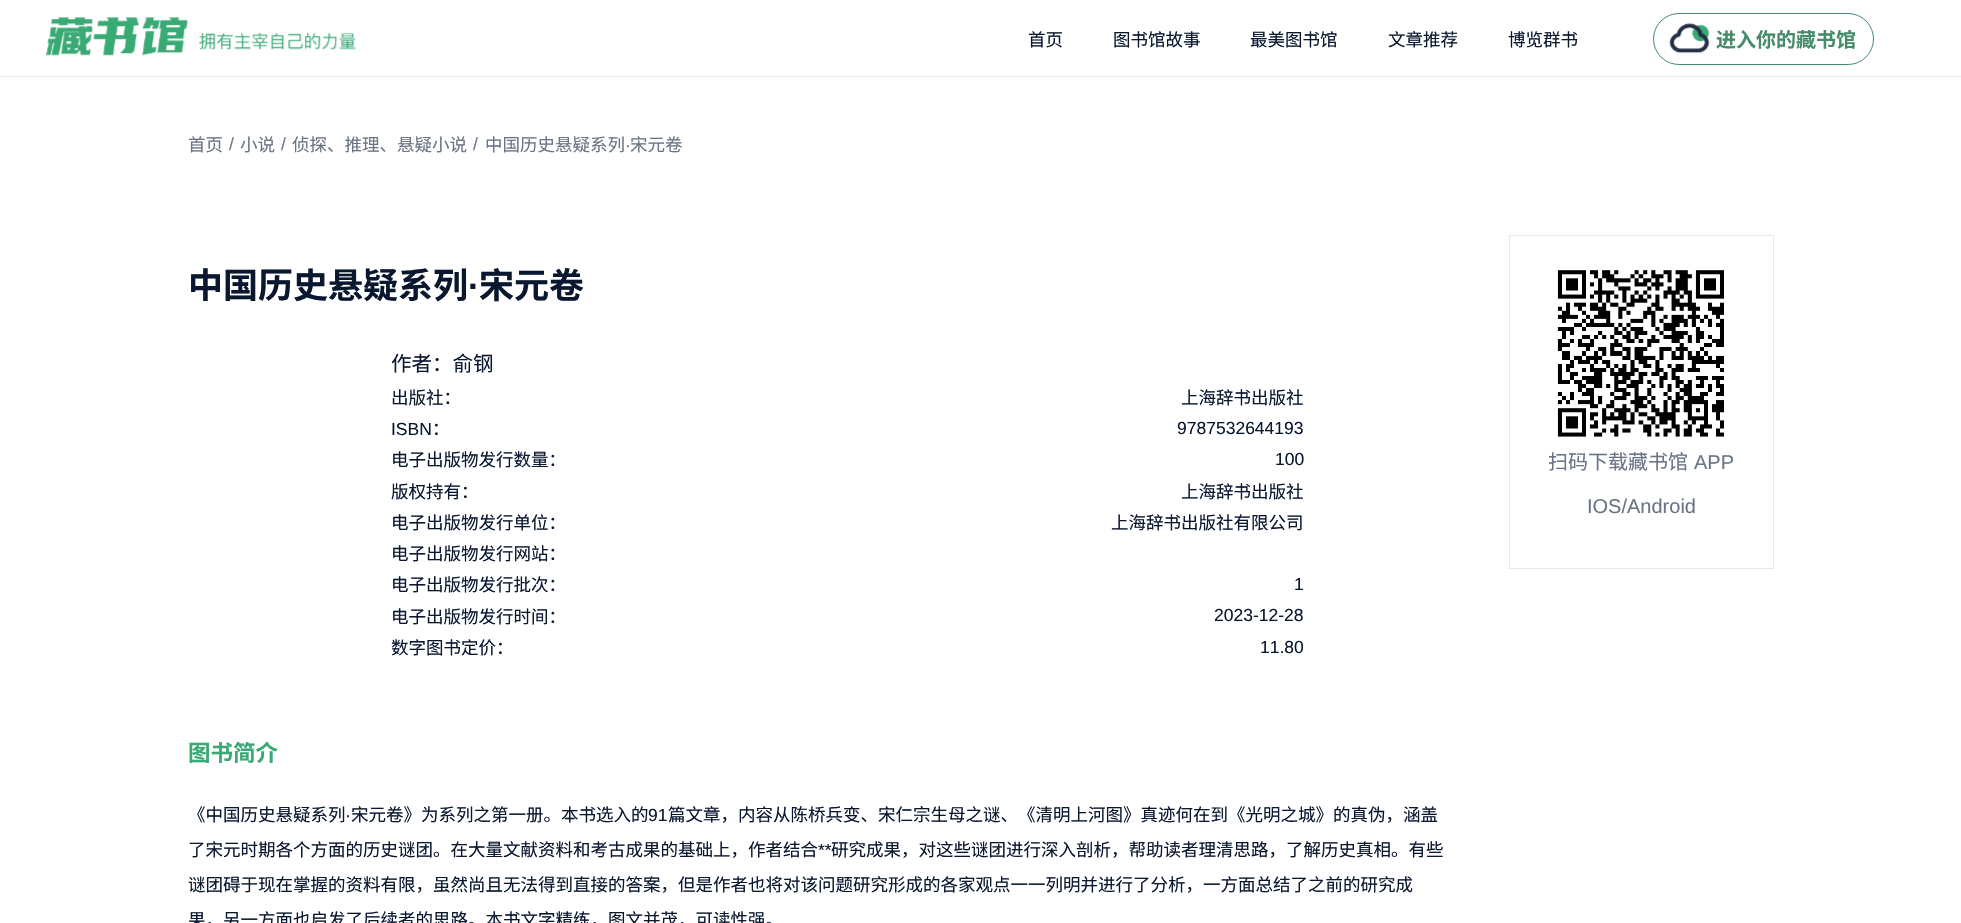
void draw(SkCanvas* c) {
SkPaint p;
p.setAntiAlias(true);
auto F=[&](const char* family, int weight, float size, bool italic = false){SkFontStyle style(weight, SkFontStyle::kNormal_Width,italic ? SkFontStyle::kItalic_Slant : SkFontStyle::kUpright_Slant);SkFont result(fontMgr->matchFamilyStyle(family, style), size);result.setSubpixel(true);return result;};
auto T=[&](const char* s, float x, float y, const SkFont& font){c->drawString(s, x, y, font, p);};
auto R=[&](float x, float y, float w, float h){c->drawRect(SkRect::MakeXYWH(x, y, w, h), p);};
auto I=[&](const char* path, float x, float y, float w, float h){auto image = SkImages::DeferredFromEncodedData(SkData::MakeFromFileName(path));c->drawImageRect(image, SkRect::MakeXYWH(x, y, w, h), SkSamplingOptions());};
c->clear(0xffffffff);
p.setColor(0xffe4e8eb);
R(0,76,1961,1);
I("1.png",46,17,310,39);
auto f1 = F("Noto Sans CJK SC",400,17.5);
p.setColor(0xff09172f);
T("首页",1028,46,f1);
T("图书馆故事",1113,46,f1);
T("最美图书馆",1250,46,f1);
T("文章推荐",1388,46,f1);
T("博览群书",1508,46,f1);
p.setStroke(true);
p.setStrokeWidth(1);
p.setColor(0xff468c6a);
c->drawRoundRect(SkRect::MakeXYWH(1653.5,13.5,220,51),25.5,25.5,p);
I("2.png",1669,23,41,31);
auto f2 = F("Noto Sans CJK SC",700,20);
p.setStroke(false);
T("进入你的藏书馆",1716,47,f2);
p.setColor(0xff6a7484);
T("首页",188,151,f1);
auto f3 = F("Liberation Sans",400,17.5);
T("/",229,150,f3);
T("小说",240,151,f1);
T("/",281,150,f3);
T("侦探、推理、悬疑小说",292,151,f1);
T("/",473,150,f3);
T("中国历史悬疑系列",485,151,f1);
T("·",625,151,f3);
T("宋元卷",630,151,f1);
auto f4 = F("Noto Sans CJK SC",700,35);
p.setColor(0xff09172f);
T("中国历史悬疑系列",188,298,f4);
auto f5 = F("Liberation Sans",700,35);
T("·",468,298,f5);
T("宋元卷",479,298,f4);
auto f6 = F("Noto Sans CJK SC",400,20.5);
T("作者：俞钢",391,371,f6);
T("出版社：",391,404,f1);
T("上海辞书出版社",1181,404,f1);
T("ISBN",391,435,f3);
T("：",432,435,f1);
T("9787532644193",1177,434,f3);
T("电子出版物发行数量：",391,466,f1);
T("100",1275,465,f3);
T("版权持有：",391,498,f1);
T("上海辞书出版社",1181,498,f1);
T("电子出版物发行单位：",391,529,f1);
T("上海辞书出版社有限公司",1111,529,f1);
T("电子出版物发行网站：",391,560,f1);
T("电子出版物发行批次：",391,591,f1);
T("1",1294,590,f3);
T("电子出版物发行时间：",391,623,f1);
T("2023-12-28",1214,621,f3);
T("数字图书定价：",391,654,f1);
T("11.80",1260,653,f3);
auto f7 = F("Noto Sans CJK SC",700,22.5);
p.setColor(0xff3aaa75);
T("图书简介",188,761,f7);
p.setColor(0xff09172f);
T("《中国历史悬疑系列",188,821,f1);
T("·",345,821,f3);
T("宋元卷》为系列之第一册。本书选入的",351,821,f1);
T("91",648,821,f3);
T("篇文章，内容从陈桥兵变、宋仁宗生母之谜、《清明上河图》真迹何在到《光明之城》的真伪，涵盖",668,821,f1);
T("了宋元时期各个方面的历史谜团。在大量文献资料和考古成果的基础上，作者结合",188,856,f1);
T("**",818,856,f3);
T("研究成果，对这些谜团进行深入剖析，帮助读者理清思路，了解历史真相。有些",831,856,f1);
T("谜团碍于现在掌握的资料有限，虽然尚且无法得到直接的答案，但是作者也将对该问题研究形成的各家观点一一列明并进行了分析，一方面总结了之前的研究成",188,891,f1);
T("果，另一方面也启发了后续者的思路。本书文字精练，图文并茂，可读性强。",188,926,f1);
p.setStroke(true);
p.setColor(0xffe4e8eb);
c->drawRect(SkRect::MakeXYWH(1509.5,235.5,264,333),p);
I("3.png",1557,270,167,167);
auto f8 = F("Noto Sans CJK SC",400,20);
p.setStroke(false);
p.setColor(0xff6a7484);
T("扫码下载藏书馆",1548,469,f8);
auto f9 = F("Liberation Sans",400,20);
T("APP",1694,469,f9);
T("IOS/Android",1587,513,f9);
}
